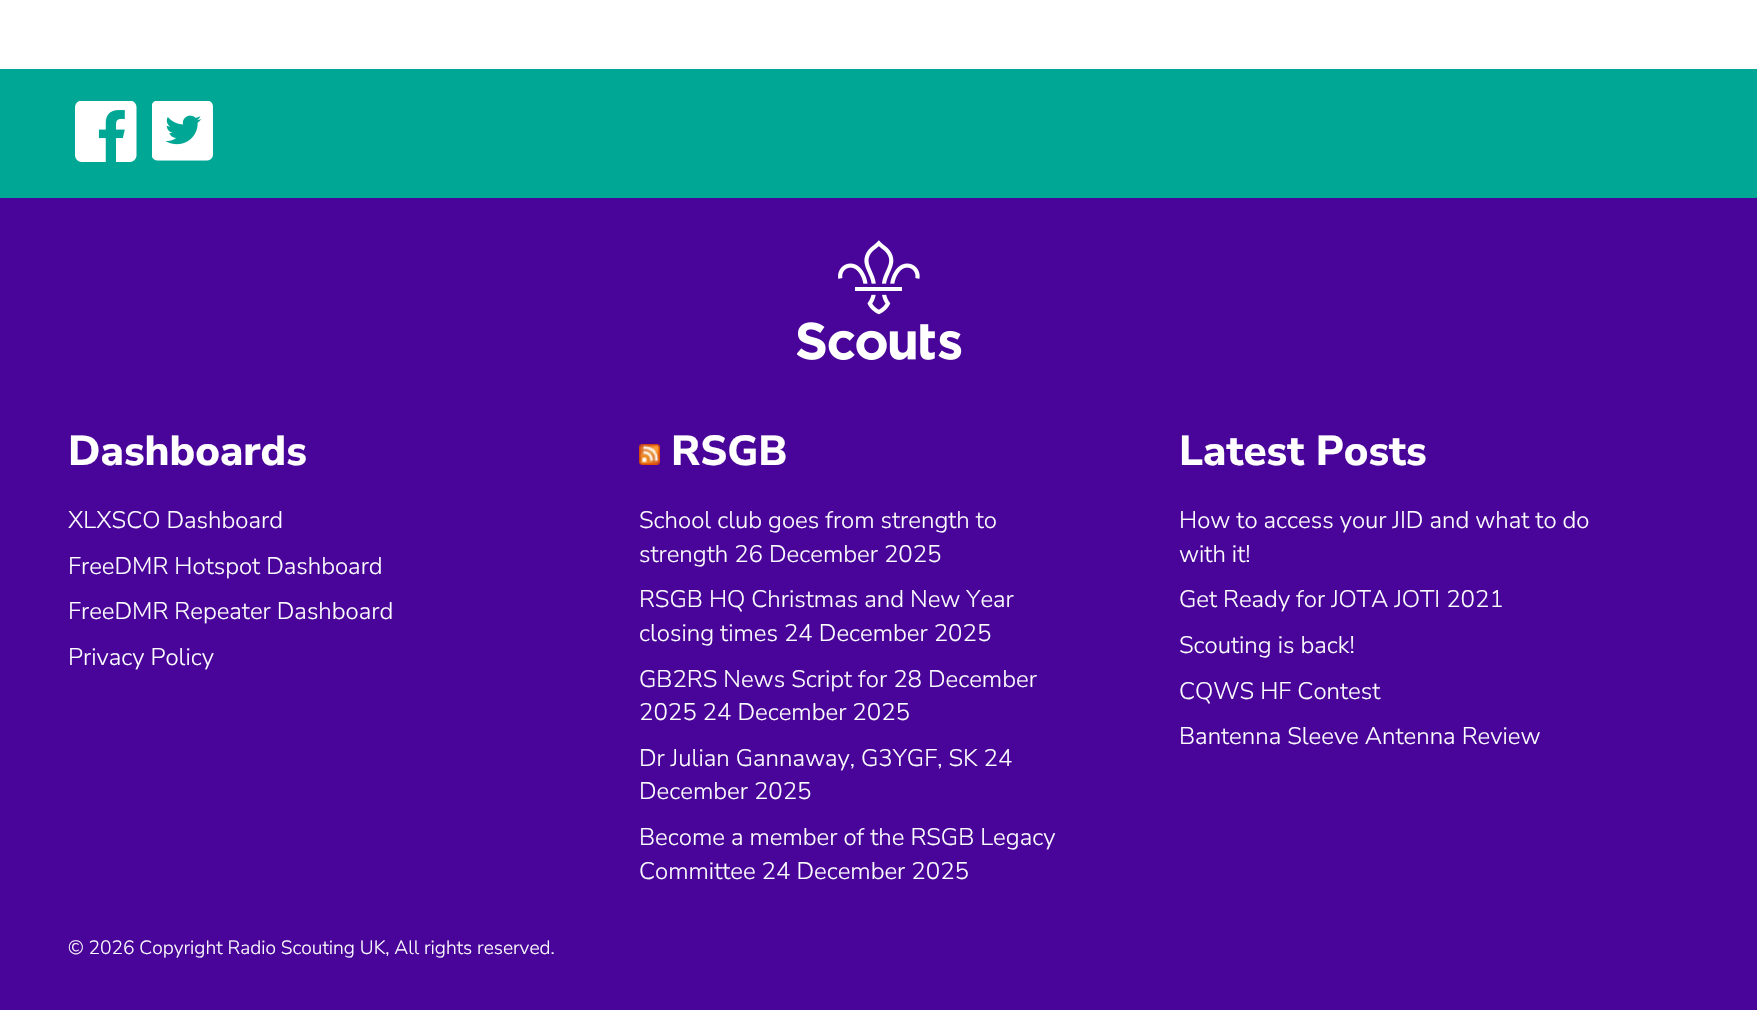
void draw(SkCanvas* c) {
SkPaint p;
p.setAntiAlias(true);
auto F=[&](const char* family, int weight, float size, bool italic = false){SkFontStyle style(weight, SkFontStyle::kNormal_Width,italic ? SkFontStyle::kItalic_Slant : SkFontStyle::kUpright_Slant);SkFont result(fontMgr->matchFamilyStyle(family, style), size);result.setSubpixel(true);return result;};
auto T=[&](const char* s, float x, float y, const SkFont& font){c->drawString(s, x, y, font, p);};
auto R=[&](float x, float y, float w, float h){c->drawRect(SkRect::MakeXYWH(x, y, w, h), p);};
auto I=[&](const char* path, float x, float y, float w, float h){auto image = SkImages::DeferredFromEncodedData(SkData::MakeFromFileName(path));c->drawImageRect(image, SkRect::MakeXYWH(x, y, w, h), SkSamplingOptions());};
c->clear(0xffffffff);
p.setColor(0xff00a794);
R(0,69,1757,129);
I("1.png",75,101,62,61);
I("2.png",152,101,61,60);
p.setColor(0xff490499);
R(0,198,1757,812);
I("3.png",797,240,165,120);
auto f1 = F("Nunito Sans",800,42);
p.setColor(0xffffffff);
T("Dashboards",68,465,f1);
auto f2 = F("Nunito Sans",300,24);
T("XLXSCO Dashboard",68,528,f2);
T("FreeDMR Hotspot Dashboard",68,574,f2);
T("FreeDMR Repeater Dashboard",68,619,f2);
T("Privacy Policy",68,665,f2);
I("4.png",639,444,21,21);
T("RSGB",671,465,f1);
T("School club goes from strength to",639,528,f2);
T("strength 26 December 2025",639,562,f2);
T("RSGB HQ Christmas and New Year",639,607,f2);
T("closing times 24 December 2025",639,641,f2);
T("GB2RS News Script for 28 December",639,687,f2);
T("2025 24 December 2025",639,720,f2);
T("Dr Julian Gannaway, G3YGF, SK 24",639,766,f2);
T("December 2025",639,799,f2);
T("Become a member of the RSGB Legacy",639,845,f2);
T("Committee 24 December 2025",639,879,f2);
T("Latest Posts",1179,465,f1);
T("How to access your JID and what to do",1179,528,f2);
T("with it!",1179,562,f2);
T("Get Ready for JOTA JOTI 2021",1179,607,f2);
T("Scouting is back!",1179,653,f2);
T("CQWS HF Contest",1179,699,f2);
T("Bantenna Sleeve Antenna Review",1179,744,f2);
auto f3 = F("Nunito Sans",300,19.2);
T("© 2026 Copyright Radio Scouting UK, All rights reserved.",68,954,f3);
}
